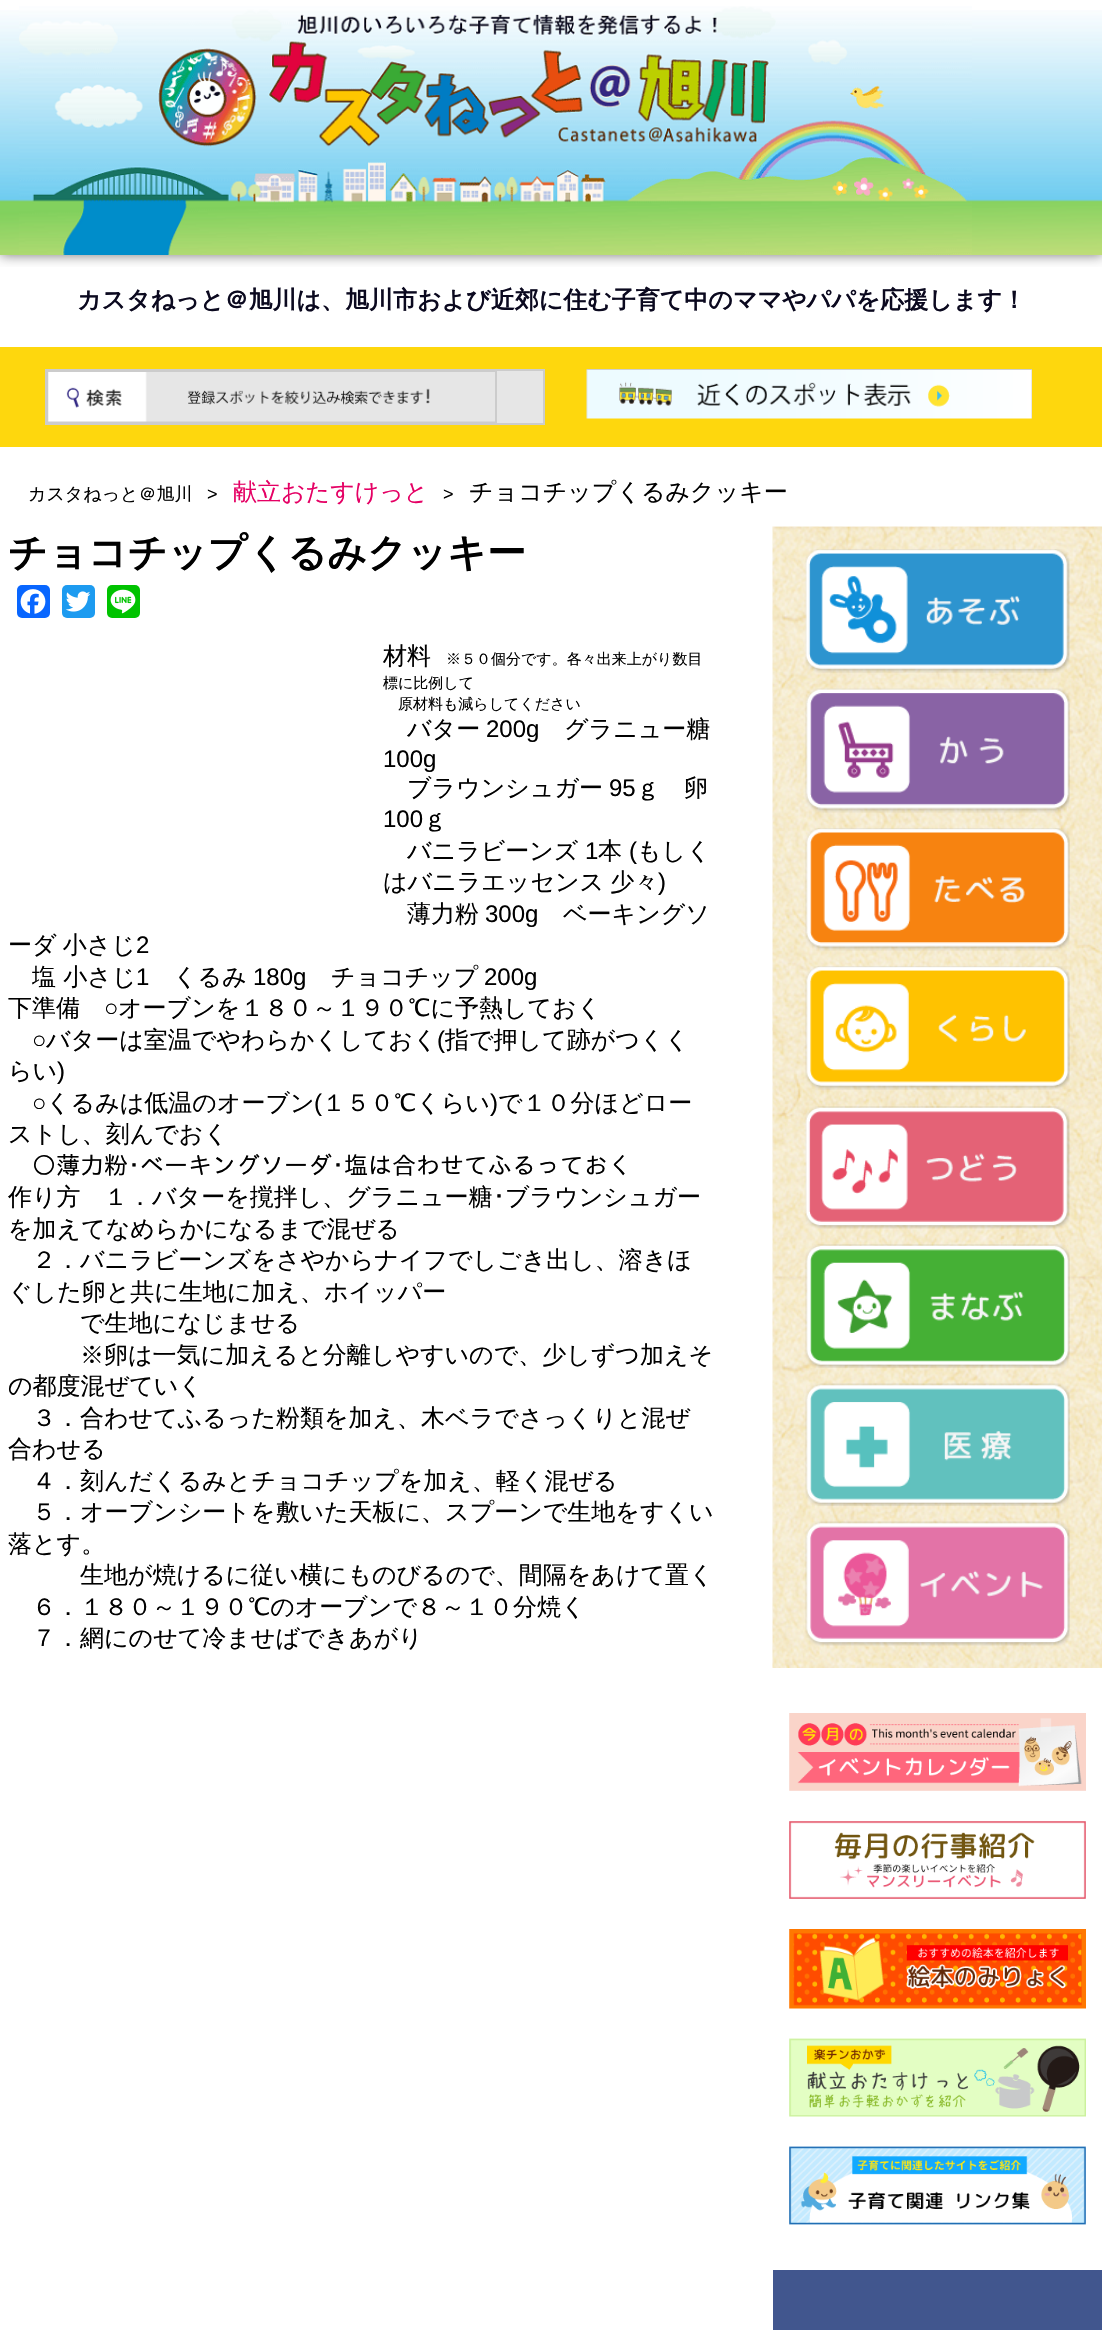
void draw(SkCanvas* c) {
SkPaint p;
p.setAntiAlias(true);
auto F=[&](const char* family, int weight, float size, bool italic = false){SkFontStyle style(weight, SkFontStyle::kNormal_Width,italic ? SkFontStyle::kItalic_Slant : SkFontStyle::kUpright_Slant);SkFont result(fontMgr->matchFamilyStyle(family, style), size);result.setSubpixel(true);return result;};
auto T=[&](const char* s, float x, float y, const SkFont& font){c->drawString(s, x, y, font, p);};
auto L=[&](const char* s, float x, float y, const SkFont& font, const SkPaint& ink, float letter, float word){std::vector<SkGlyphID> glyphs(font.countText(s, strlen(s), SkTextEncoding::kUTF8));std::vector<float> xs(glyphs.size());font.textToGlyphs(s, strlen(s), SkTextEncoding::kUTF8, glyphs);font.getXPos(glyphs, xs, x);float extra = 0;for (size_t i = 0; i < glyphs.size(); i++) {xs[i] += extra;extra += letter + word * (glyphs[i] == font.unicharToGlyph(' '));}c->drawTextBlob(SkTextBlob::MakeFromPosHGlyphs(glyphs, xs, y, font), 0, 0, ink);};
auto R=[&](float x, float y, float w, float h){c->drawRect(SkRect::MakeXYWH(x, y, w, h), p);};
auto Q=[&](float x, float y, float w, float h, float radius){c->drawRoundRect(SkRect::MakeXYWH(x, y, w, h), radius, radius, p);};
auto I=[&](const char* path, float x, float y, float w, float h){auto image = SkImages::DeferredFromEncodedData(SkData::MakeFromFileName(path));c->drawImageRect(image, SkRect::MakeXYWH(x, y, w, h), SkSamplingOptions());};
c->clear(0xffffffff);
c->save();
c->clipRect(SkRect::MakeXYWH(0,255,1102,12));
p.setColor(0xff777777);
p.setMaskFilter(SkMaskFilter::MakeBlur(kNormal_SkBlurStyle, 6));
c->drawRect(SkRect::MakeXYWH(0,0,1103,255),p);
p.setMaskFilter(nullptr);
c->restore();
I("1.png",0,10,1102,245);
I("2.png",19,6,953,249);
auto f1 = F("WenQuanYi Zen Hei",700,24);
p.setColor(0xff0b091f);
T("カスタねっと＠旭川は、旭川市および近郊に住む子育て中のママやパパを応援します！",77,308,f1);
p.setColor(0xfffed70d);
R(0,347,1102,100);
p.setColor(0xffe6e6e6);
R(497,371,46,52);
p.setStroke(true);
p.setStrokeWidth(2);
p.setColor(0xffcccccc);
c->drawRect(SkRect::MakeXYWH(46,370,498,54),p);
c->drawRect(SkRect::MakeXYWH(48,372,448,50),p);
I("3.png",48,372,447,50);
I("4.png",586,369,446,50);
auto f2 = F("WenQuanYi Zen Hei",500,18);
p.setStroke(false);
p.setColor(0xff000000);
T("カスタねっと＠旭川",28,500,f2);
auto f3 = F("Liberation Sans",400,18);
T(">",207,500,f3);
auto f4 = F("WenQuanYi Zen Hei",500,24);
p.setColor(0xffe50064);
T("献立おたすけっと",233,500,f4);
p.setColor(0xff000000);
T(">",443,500,f3);
T("チョコチップくるみクッキー",469,500,f4);
auto f5 = F("WenQuanYi Zen Hei",700,39);
T("チョコチップくるみクッキー",8,566,f5);
p.setColor(0xff0866ff);
Q(17,585,33,33,5);
I("5.png",20,589,26,25);
p.setColor(0xff1d9bf0);
Q(62,585,33,33,5);
I("6.png",65,591,26,21);
p.setColor(0xff00c300);
Q(107,585,33,33,5);
I("7.png",110,589,26,25);
p.setColor(0xff000000);
T("材料",383,664,f4);
auto f6 = F("WenQuanYi Zen Hei",500,15);
T("※５０個分です。各々出来上がり数目",446,664,f6);
T("標に比例して",383,688,f6);
T("原材料も減らしてください",398,709,f6);
T("バター",407,737,f4);
auto f7 = F("Liberation Sans",400,24);
T("200g",486,737,f7);
T("グラニュー糖",564,737,f4);
T("100g",383,767,f7);
T("ブラウンシュガー",407,796,f4);
T("95",609,796,f7);
T("ｇ　卵",636,796,f4);
T("100",383,827,f7);
T("ｇ",423,827,f4);
T("バニラビーンズ",407,859,f4);
T("1",585,859,f7);
T("本",598,859,f4);
T("(",629,859,f7);
T("もしく",637,859,f4);
L("はバニラエッセンス 少々",383,890,f4,p,0,-1);
T(")",658,890,f7);
T("薄力粉",407,922,f4);
T("300g",485,922,f7);
T("ベーキングソ",563,922,f4);
L("ーダ 小さじ",8,953,f4,p,0,-1);
T("2",136,953,f7);
T("塩 小さじ",32,985,f4);
T("1",136,985,f7);
T("くるみ",173,985,f4);
T("180g",253,985,f7);
T("チョコチップ",331,985,f4);
T("200g",484,985,f7);
T("下準備",8,1016,f4);
T("○",104,1016,f7);
T("オーブンを１８０～１９０℃に予熱しておく",118,1016,f4);
T("○",32,1048,f7);
T("バターは室温でやわらかくしておく",46,1048,f4);
T("(",437,1048,f7);
T("指で押して跡がつくく",445,1048,f4);
T("らい",8,1079,f4);
T(")",57,1079,f7);
T("○",32,1111,f7);
T("くるみは低温のオーブン",46,1111,f4);
T("(",314,1111,f7);
T("１５０℃くらい",322,1111,f4);
T(")",490,1111,f7);
T("で１０分ほどロー",498,1111,f4);
T("ストし、刻んでおく",8,1142,f4);
auto f8 = F("IPAGothic",400,24);
T("○薄力粉･ベーキングソーダ･塩は合わせてふるっておく",32,1174,f8);
T("作り方",8,1205,f4);
T("１．バターを撹拌し、グラニュー糖",104,1205,f4);
T("･",493,1205,f8);
T("ブラウンシュガー",505,1205,f4);
T("を加えてなめらかになるまで混ぜる",8,1237,f4);
T("２．バニラビーンズをさやからナイフでしごき出し、溶きほ",32,1268,f4);
T("ぐした卵と共に生地に加え、ホイッパー",8,1300,f4);
T("で生地になじませる",80,1331,f4);
T("※卵は一気に加えると分離しやすいので、少しずつ加えそ",80,1363,f4);
T("の都度混ぜていく",8,1394,f4);
T("３．合わせてふるった粉類を加え、木ベラでさっくりと混ぜ",32,1426,f4);
T("合わせる",8,1457,f4);
T("４．刻んだくるみとチョコチップを加え、軽く混ぜる",32,1489,f4);
T("５．オーブンシートを敷いた天板に、スプーンで生地をすくい",32,1520,f4);
T("落とす。",8,1552,f4);
T("生地が焼けるに従い横にものびるので、間隔をあけて置く",80,1583,f4);
T("６．１８０～１９０℃のオーブンで８～１０分焼く",32,1615,f4);
T("７．網にのせて冷ませばできあがり",32,1646,f4);
I("8.png",772,526,330,1142);
I("9.png",805,549,265,124);
I("10.png",805,688,265,125);
I("11.png",805,828,265,123);
I("12.png",805,966,265,124);
I("13.png",805,1106,265,123);
I("14.png",805,1244,265,124);
I("15.png",805,1383,265,123);
I("16.png",805,1521,265,125);
I("17.png",789,1713,297,78);
I("18.png",789,1821,297,78);
I("19.png",789,1929,297,80);
I("20.png",789,2038,297,79);
I("21.png",789,2146,297,79);
p.setColor(0xff41568e);
R(773,2270,329,60);
}
